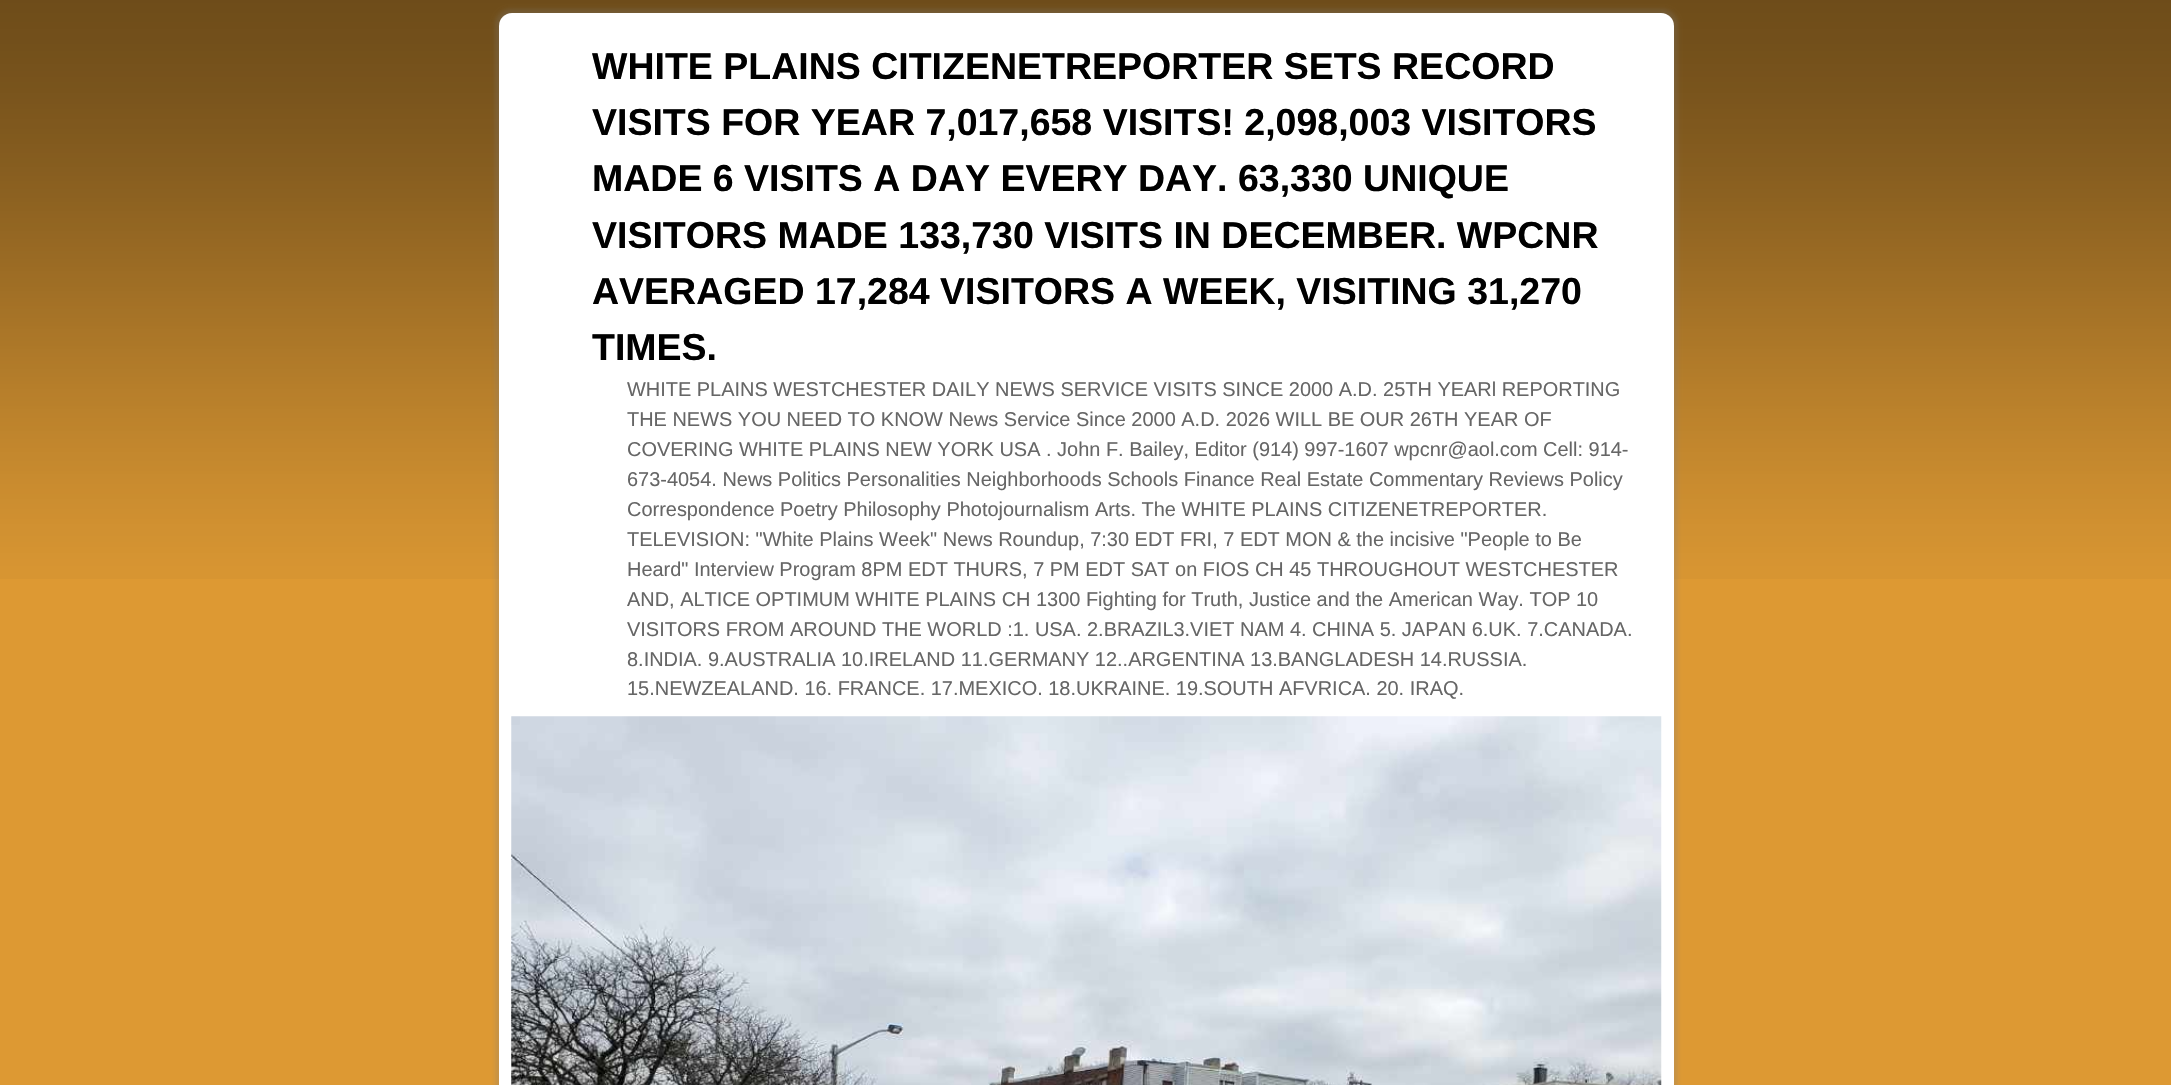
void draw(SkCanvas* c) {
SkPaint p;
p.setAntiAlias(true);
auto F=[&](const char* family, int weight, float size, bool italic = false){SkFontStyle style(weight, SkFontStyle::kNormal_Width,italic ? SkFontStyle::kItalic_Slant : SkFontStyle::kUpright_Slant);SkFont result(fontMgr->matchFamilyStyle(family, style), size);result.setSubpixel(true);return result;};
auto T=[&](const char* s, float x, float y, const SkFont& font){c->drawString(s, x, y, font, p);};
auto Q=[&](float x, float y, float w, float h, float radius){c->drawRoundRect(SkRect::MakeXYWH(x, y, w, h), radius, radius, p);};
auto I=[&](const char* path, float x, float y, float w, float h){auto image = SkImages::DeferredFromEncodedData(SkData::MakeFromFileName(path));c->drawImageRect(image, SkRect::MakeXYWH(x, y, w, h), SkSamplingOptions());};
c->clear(0xffdd9933);
I("1.png",0,0,2171,579);
p.setColor(0x407f7f7f);
p.setMaskFilter(SkMaskFilter::MakeBlur(kNormal_SkBlurStyle, 2));
c->drawRoundRect(SkRect::MakeXYWH(495,9,1183,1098),16,16,p);
p.setMaskFilter(nullptr);
p.setColor(0xffffffff);
Q(499,13,1175,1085,13);
auto f1 = F("Liberation Sans",700,37.5);
p.setColor(0xff000000);
T("WHITE PLAINS CITIZENETREPORTER SETS RECORD",592,79,f1);
T("VISITS FOR YEAR 7,017,658 VISITS! 2,098,003 VISITORS",592,135,f1);
T("MADE 6 VISITS A DAY EVERY DAY. 63,330 UNIQUE",592,191,f1);
T("VISITORS MADE 133,730 VISITS IN DECEMBER. WPCNR",592,248,f1);
T("AVERAGED 17,284 VISITORS A WEEK, VISITING 31,270",592,304,f1);
T("TIMES.",592,360,f1);
auto f2 = F("Liberation Sans",400,19.95);
p.setColor(0xff666666);
T("WHITE PLAINS WESTCHESTER DAILY NEWS SERVICE VISITS SINCE 2000 A.D. 25TH YEARl REPORTING",627,396,f2);
T("THE NEWS YOU NEED TO KNOW News Service Since 2000 A.D. 2026 WILL BE OUR 26TH YEAR OF",627,426,f2);
T("COVERING WHITE PLAINS NEW YORK USA . John F. Bailey, Editor (914) 997-1607 wpcnr@aol.com Cell: 914-",627,456,f2);
T("673-4054. News Politics Personalities Neighborhoods Schools Finance Real Estate Commentary Reviews Policy",627,486,f2);
T("Correspondence Poetry Philosophy Photojournalism Arts. The WHITE PLAINS CITIZENETREPORTER.",627,516,f2);
T("TELEVISION: \"White Plains Week\" News Roundup, 7:30 EDT FRI, 7 EDT MON & the incisive \"People to Be",627,546,f2);
T("Heard\" Interview Program 8PM EDT THURS, 7 PM EDT SAT on FIOS CH 45 THROUGHOUT WESTCHESTER",627,576,f2);
T("AND, ALTICE OPTIMUM WHITE PLAINS CH 1300 Fighting for Truth, Justice and the American Way. TOP 10",627,606,f2);
T("VISITORS FROM AROUND THE WORLD :1. USA. 2.BRAZIL3.VIET NAM 4. CHINA 5. JAPAN 6.UK. 7.CANADA.",627,636,f2);
T("8.INDIA. 9.AUSTRALIA 10.IRELAND 11.GERMANY 12..ARGENTINA 13.BANGLADESH 14.RUSSIA.",627,666,f2);
T("15.NEWZEALAND. 16. FRANCE. 17.MEXICO. 18.UKRAINE. 19.SOUTH AFVRICA. 20. IRAQ.",627,695,f2);
I("2.png",511,716,1151,369);
}
